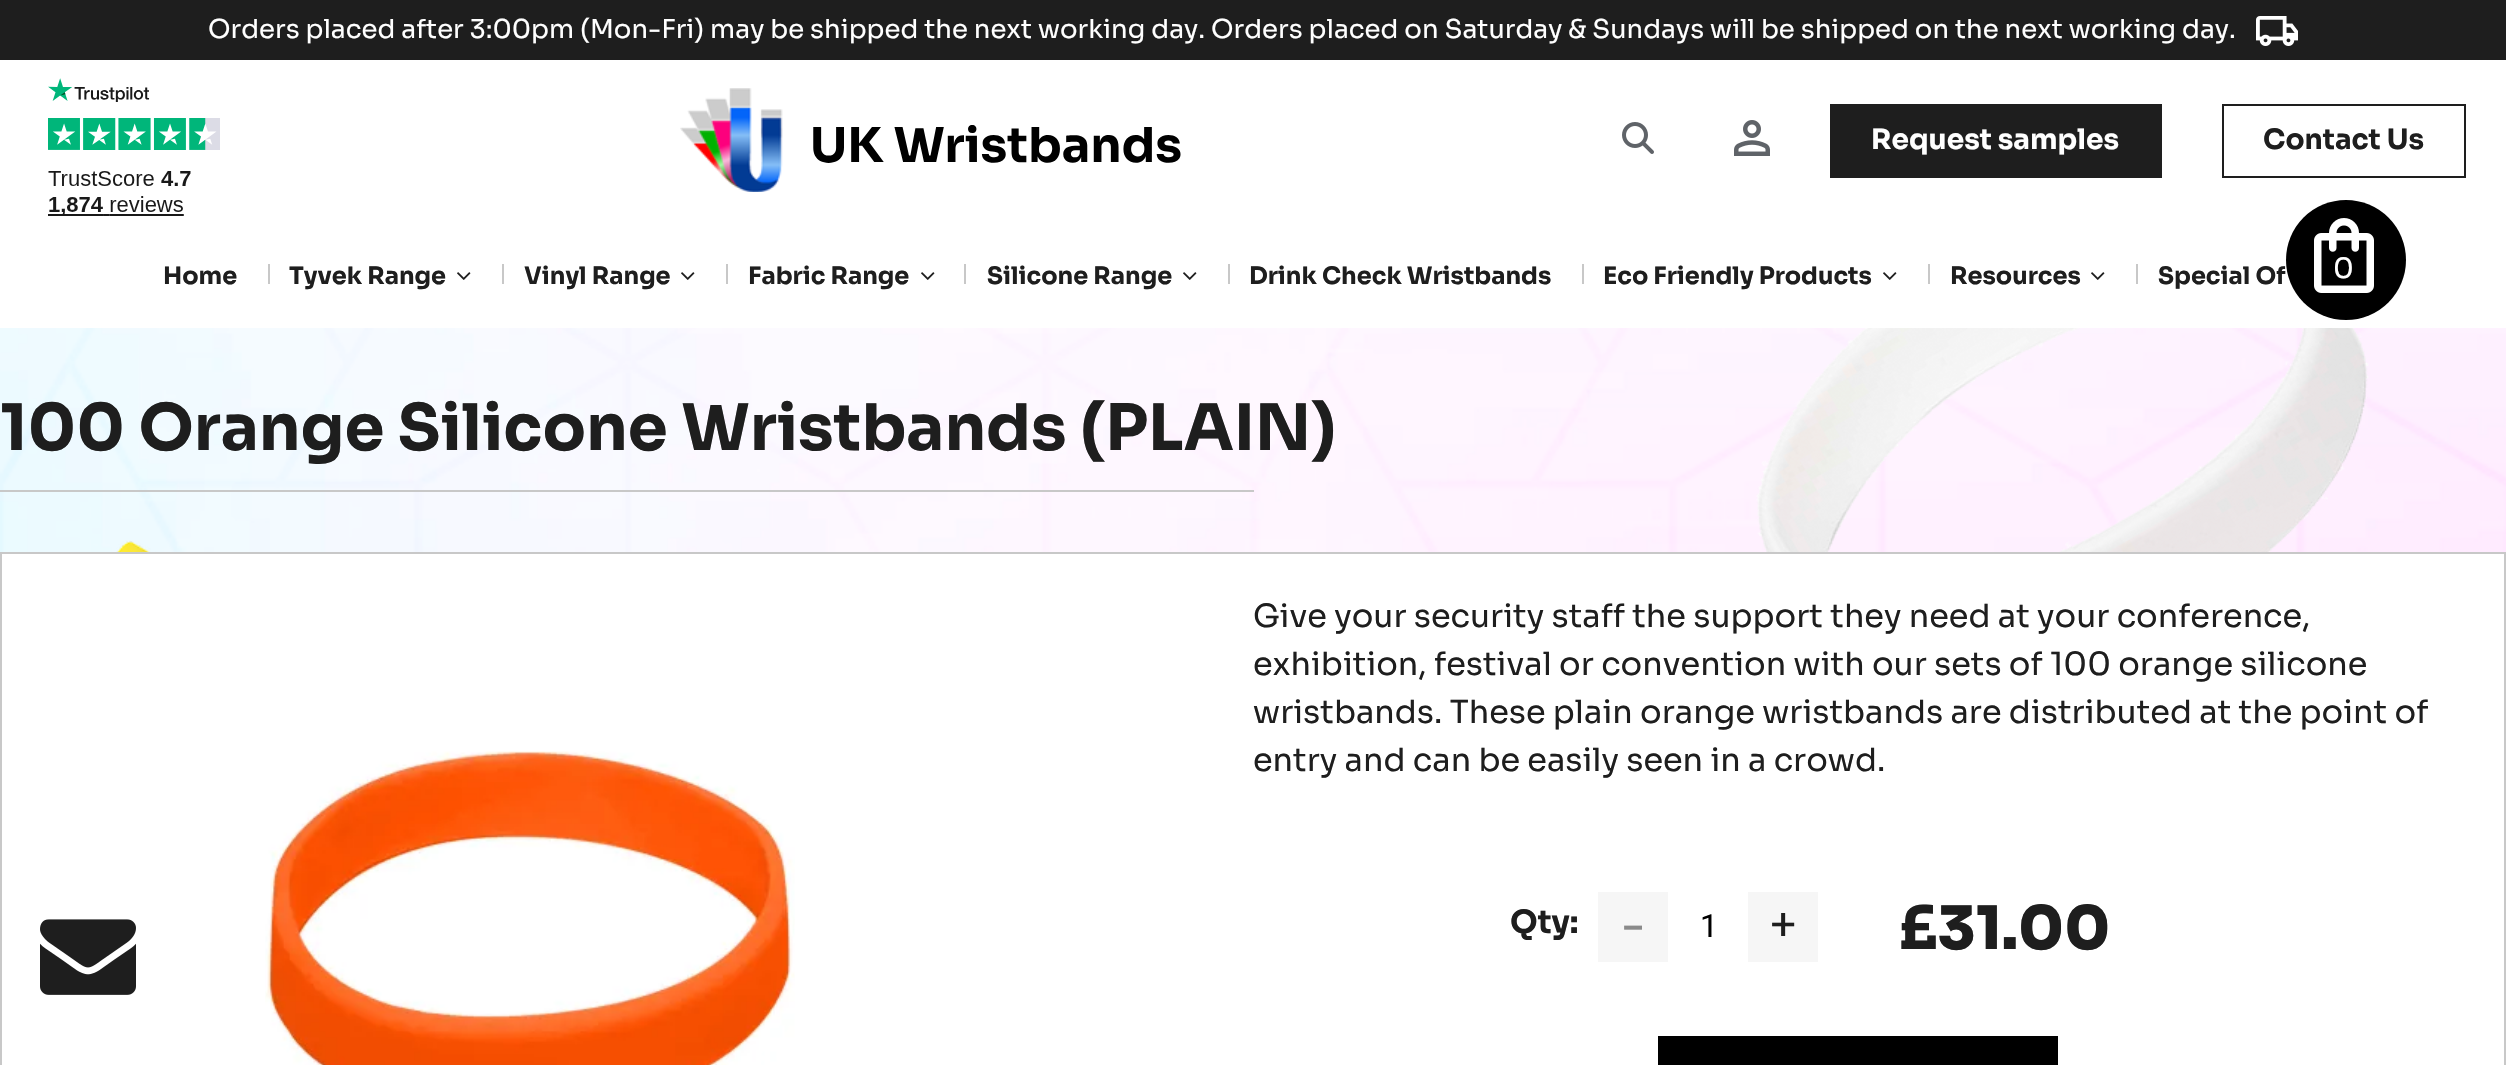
void draw(SkCanvas* c) {
SkPaint p;
p.setAntiAlias(true);
auto F=[&](const char* family, int weight, float size, bool italic = false){SkFontStyle style(weight, SkFontStyle::kNormal_Width,italic ? SkFontStyle::kItalic_Slant : SkFontStyle::kUpright_Slant);SkFont result(fontMgr->matchFamilyStyle(family, style), size);result.setSubpixel(true);return result;};
auto T=[&](const char* s, float x, float y, const SkFont& font){c->drawString(s, x, y, font, p);};
auto R=[&](float x, float y, float w, float h){c->drawRect(SkRect::MakeXYWH(x, y, w, h), p);};
auto I=[&](const char* path, float x, float y, float w, float h){auto image = SkImages::DeferredFromEncodedData(SkData::MakeFromFileName(path));c->drawImageRect(image, SkRect::MakeXYWH(x, y, w, h), SkSamplingOptions());};
c->clear(0xffffffff);
p.setColor(0xff1e1e1e);
R(0,0,2506,60);
auto f1 = F("Sora",400,26);
p.setColor(0xffffffff);
T("Orders placed after 3:00pm (Mon-Fri) may be shipped the next working day. Orders placed on Saturday & Sundays will be shipped on the next working day.",208,38,f1);
I("1.png",2256,16,42,30);
I("2.png",48,78,172,138);
I("3.png",680,88,501,104);
I("4.png",1622,122,32,32);
I("5.png",1734,120,36,36);
p.setColor(0xff1e1e1e);
R(1830,104,332,74);
auto f2 = F("Sora",700,28);
p.setColor(0xffffffff);
T("Request samples",1871,149,f2);
p.setStroke(true);
p.setStrokeWidth(2);
p.setColor(0xff1e1e1e);
c->drawRect(SkRect::MakeXYWH(2223,105,242,72),p);
p.setStroke(false);
T("Contact Us",2263,149,f2);
I("8.png",0,328,2506,224);
I("9.png",116,328,2253,224);
p.setColor(0xffffffff);
p.setMaskFilter(SkMaskFilter::MakeBlur(kNormal_SkBlurStyle, 5));
c->drawRoundRect(SkRect::MakeXYWH(2286,200,120,120),60,60,p);
p.setMaskFilter(nullptr);
p.setMaskFilter(SkMaskFilter::MakeBlur(kNormal_SkBlurStyle, 5));
c->drawRoundRect(SkRect::MakeXYWH(2286,200,120,120),60,60,p);
p.setMaskFilter(nullptr);
p.setColor(0xff000000);
c->drawCircle(2346,260,60,p);
I("6.png",2314,218,60,75);
auto f3 = F("Sora",400,28);
p.setColor(0xffffffff);
T("0",2333,278,f3);
auto f4 = F("Sora",700,24);
p.setColor(0xff1e1e1e);
T("Home",163,284,f4);
p.setColor(0xffc8c8c8);
R(268,264,2,20);
p.setColor(0xff1e1e1e);
T("Tyvek Range",289,284,f4);
I("7.png",457,272,14,8);
p.setColor(0xffc8c8c8);
R(502,264,2,20);
p.setColor(0xff1e1e1e);
T("Vinyl Range",524,284,f4);
I("7.png",681,272,14,8);
p.setColor(0xffc8c8c8);
R(726,264,2,20);
p.setColor(0xff1e1e1e);
T("Fabric Range",748,284,f4);
I("7.png",921,272,14,8);
p.setColor(0xffc8c8c8);
R(964,264,2,20);
p.setColor(0xff1e1e1e);
T("Silicone Range",987,284,f4);
I("7.png",1183,272,14,8);
p.setColor(0xffc8c8c8);
R(1228,264,2,20);
p.setColor(0xff1e1e1e);
T("Drink Check Wristbands",1249,284,f4);
p.setColor(0xffc8c8c8);
R(1582,264,2,20);
p.setColor(0xff1e1e1e);
T("Eco Friendly Products",1603,284,f4);
I("7.png",1883,272,14,8);
p.setColor(0xffc8c8c8);
R(1928,264,2,20);
p.setColor(0xff1e1e1e);
T("Resources",1950,284,f4);
I("7.png",2091,272,14,8);
p.setColor(0xffc8c8c8);
R(2136,264,2,20);
p.setColor(0xff1e1e1e);
T("Special Of",2158,284,f4);
auto f5 = F("Sora",700,64);
T("100 Orange Silicone Wristbands (PLAIN)",0,450,f5);
p.setColor(0xffc8c8c8);
R(0,490,1254,2);
p.setStroke(true);
c->drawRect(SkRect::MakeXYWH(1,553,2504,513),p);
I("10.png",265,751,530,314);
auto f6 = F("Sora",400,32);
p.setStroke(false);
p.setColor(0xff1e1e1e);
T("Give your security staff the support they need at your conference,",1253,627,f6);
T("exhibition, festival or convention with our sets of 100 orange silicone",1253,675,f6);
T("wristbands. These plain orange wristbands are distributed at the point of",1253,723,f6);
T("entry and can be easily seen in a crowd.",1253,771,f6);
auto f7 = F("Sora",700,32);
T("Qty:",1510,933,f7);
p.setColor(0xfff6f6f6);
R(1598,892,220,70);
auto f8 = F("Sora",400,48);
p.setColor(0xff8a8a8a);
T("-",1621,941,f8);
p.setColor(0xffffffff);
R(1668,892,80,70);
auto f9 = F("Roboto",400,32);
p.setColor(0xff000000);
T("1",1700,937,f9);
p.setColor(0xff1e1e1e);
T("+",1769,941,f8);
auto f10 = F("Sora",800,60);
T("£31.00",1899,949,f10);
p.setColor(0xff000000);
R(1658,1036,400,29);
I("11.png",40,919,96,76);
}
